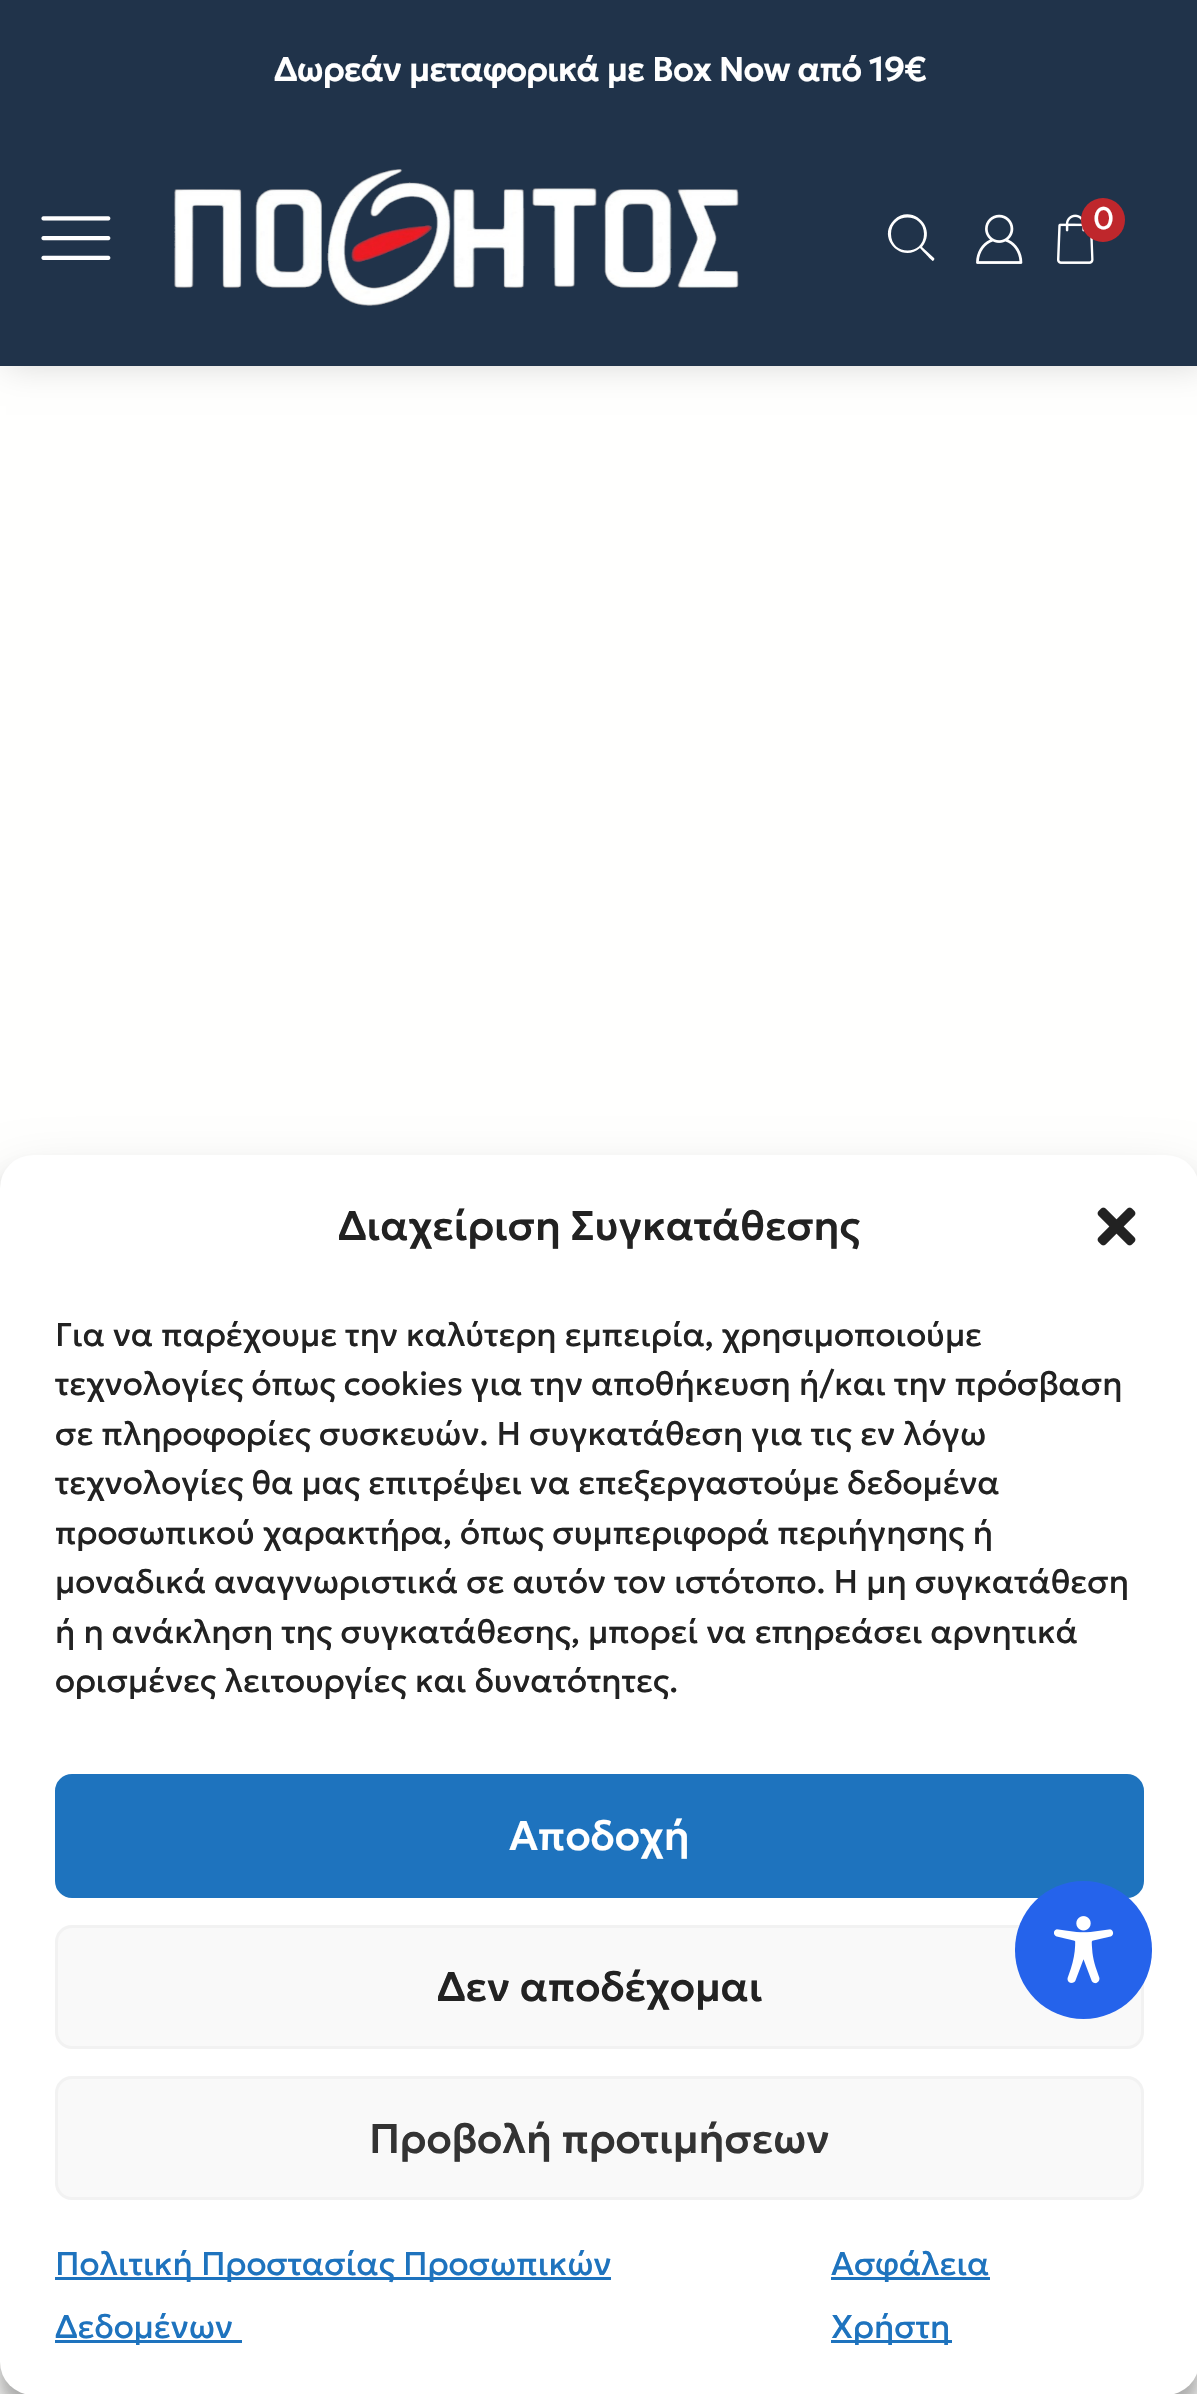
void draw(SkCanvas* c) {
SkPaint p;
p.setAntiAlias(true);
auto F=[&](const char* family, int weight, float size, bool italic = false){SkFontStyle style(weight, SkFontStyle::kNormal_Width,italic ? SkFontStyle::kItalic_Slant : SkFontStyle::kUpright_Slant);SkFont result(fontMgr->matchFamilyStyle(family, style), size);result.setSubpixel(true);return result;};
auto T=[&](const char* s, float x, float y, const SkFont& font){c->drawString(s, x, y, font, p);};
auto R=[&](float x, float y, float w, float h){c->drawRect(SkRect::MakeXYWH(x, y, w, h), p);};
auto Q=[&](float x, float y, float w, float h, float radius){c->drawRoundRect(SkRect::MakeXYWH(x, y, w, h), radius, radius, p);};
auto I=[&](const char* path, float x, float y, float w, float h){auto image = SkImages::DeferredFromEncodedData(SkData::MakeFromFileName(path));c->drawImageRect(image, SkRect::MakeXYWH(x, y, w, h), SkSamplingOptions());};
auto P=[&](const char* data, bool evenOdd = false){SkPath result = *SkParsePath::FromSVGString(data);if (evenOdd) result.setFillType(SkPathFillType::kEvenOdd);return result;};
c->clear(0xfffffffe);
p.setColor(0x26000000);
p.setMaskFilter(SkMaskFilter::MakeBlur(kNormal_SkBlurStyle, 16.5));
c->drawRect(SkRect::MakeXYWH(6,110,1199,256),p);
p.setMaskFilter(nullptr);
p.setColor(0xff20334a);
R(0,0,1197,366);
auto f1 = F("Geologica",700,33);
p.setColor(0xffffffff);
T("Δωρεάν μεταφορικά με Box Now από 19€",274,81,f1);
I("1.png",41,216,70,44);
I("2.png",174,169,565,137);
c->drawPath(P("M934 258l-12-11c16-19-10-44-28-27c-18 18 8 44 26 28c2 2 12 13 13 13c1-1 2-2 1-3zm-10-24c0 22-33 22-33 0c0-22 33-22 33 0z"),p);
I("3.png",976,214,47,50);
I("4.png",1057,214,37,50);
p.setColor(0xffbf272c);
c->drawCircle(1103,220,22,p);
auto f2 = F("Geologica",400,31);
p.setColor(0xffffffff);
T("0",1093,229,f2);
p.setColor(0x3b000000);
p.setMaskFilter(SkMaskFilter::MakeBlur(kNormal_SkBlurStyle, 8));
c->drawRoundRect(SkRect::MakeXYWH(0,1172,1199,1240),33,33,p);
p.setMaskFilter(nullptr);
p.setColor(0x30000000);
p.setMaskFilter(SkMaskFilter::MakeBlur(kNormal_SkBlurStyle, 27.5));
c->drawRoundRect(SkRect::MakeXYWH(0,1183,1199,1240),33,33,p);
p.setMaskFilter(nullptr);
p.setColor(0xffffffff);
Q(0,1155,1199,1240,33);
auto f3 = F("Geologica",500,41.25);
p.setColor(0xff222222);
T("Διαχείριση Συγκατάθεσης",338,1240,f3);
I("5.png",1097,1207,39,39);
auto f4 = F("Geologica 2",400,33);
T("Για να παρέχουμε την καλύτερη εμπειρία, χρησιμοποιούμε",55,1346,f4);
T("τεχνολογίες όπως cookies για την αποθήκευση ή/και την πρόσβαση",55,1395,f4);
T("σε πληροφορίες συσκευών. Η συγκατάθεση για τις εν λόγω",55,1445,f4);
T("τεχνολογίες θα μας επιτρέψει να επεξεργαστούμε δεδομένα",55,1494,f4);
T("προσωπικού χαρακτήρα, όπως συμπεριφορά περιήγησης ή",55,1544,f4);
T("μοναδικά αναγνωριστικά σε αυτόν τον ιστότοπο. Η μη συγκατάθεση",55,1593,f4);
T("ή η ανάκληση της συγκατάθεσης, μπορεί να επηρεάσει αρνητικά",55,1643,f4);
T("ορισμένες λειτουργίες και δυνατότητες.",55,1692,f4);
p.setColor(0xff1e73be);
c->drawRoundRect(SkRect::MakeXYWH(56.5,1775.5,1086,121),15.5,15.5,p);
p.setStroke(true);
p.setStrokeWidth(3);
c->drawRoundRect(SkRect::MakeXYWH(56.5,1775.5,1086,121),15.5,15.5,p);
p.setStroke(false);
p.setColor(0xffffffff);
T("Αποδοχή",509,1850,f3);
p.setColor(0xfff9f9f9);
c->drawRoundRect(SkRect::MakeXYWH(56.5,1926.5,1086,121),15.5,15.5,p);
p.setStroke(true);
p.setColor(0xfff2f2f2);
c->drawRoundRect(SkRect::MakeXYWH(56.5,1926.5,1086,121),15.5,15.5,p);
p.setStroke(false);
p.setColor(0xff222222);
T("Δεν αποδέχομαι",437,2001,f3);
p.setColor(0xfff9f9f9);
c->drawRoundRect(SkRect::MakeXYWH(56.5,2077.5,1086,121),15.5,15.5,p);
p.setStroke(true);
p.setColor(0xfff2f2f2);
c->drawRoundRect(SkRect::MakeXYWH(56.5,2077.5,1086,121),15.5,15.5,p);
p.setStroke(false);
p.setColor(0xff333333);
T("Προβολή προτιμήσεων",369,2153,f3);
p.setColor(0xff1e73be);
R(55,2277,556,3);
auto f5 = F("Geologica",400,33);
T("Πολιτική Προστασίας Προσωπικών",55,2275,f5);
R(55,2340,187,3);
T("Δεδομένων",55,2338,f5);
R(831,2277,159,3);
T("Ασφάλεια",831,2275,f5);
R(831,2340,121,3);
T("Χρήστη",831,2338,f5);
p.setColor(0xff2563eb);
Q(1015,1881,137,138,68.5);
I("6.png",1054,1916,60,68);
}
